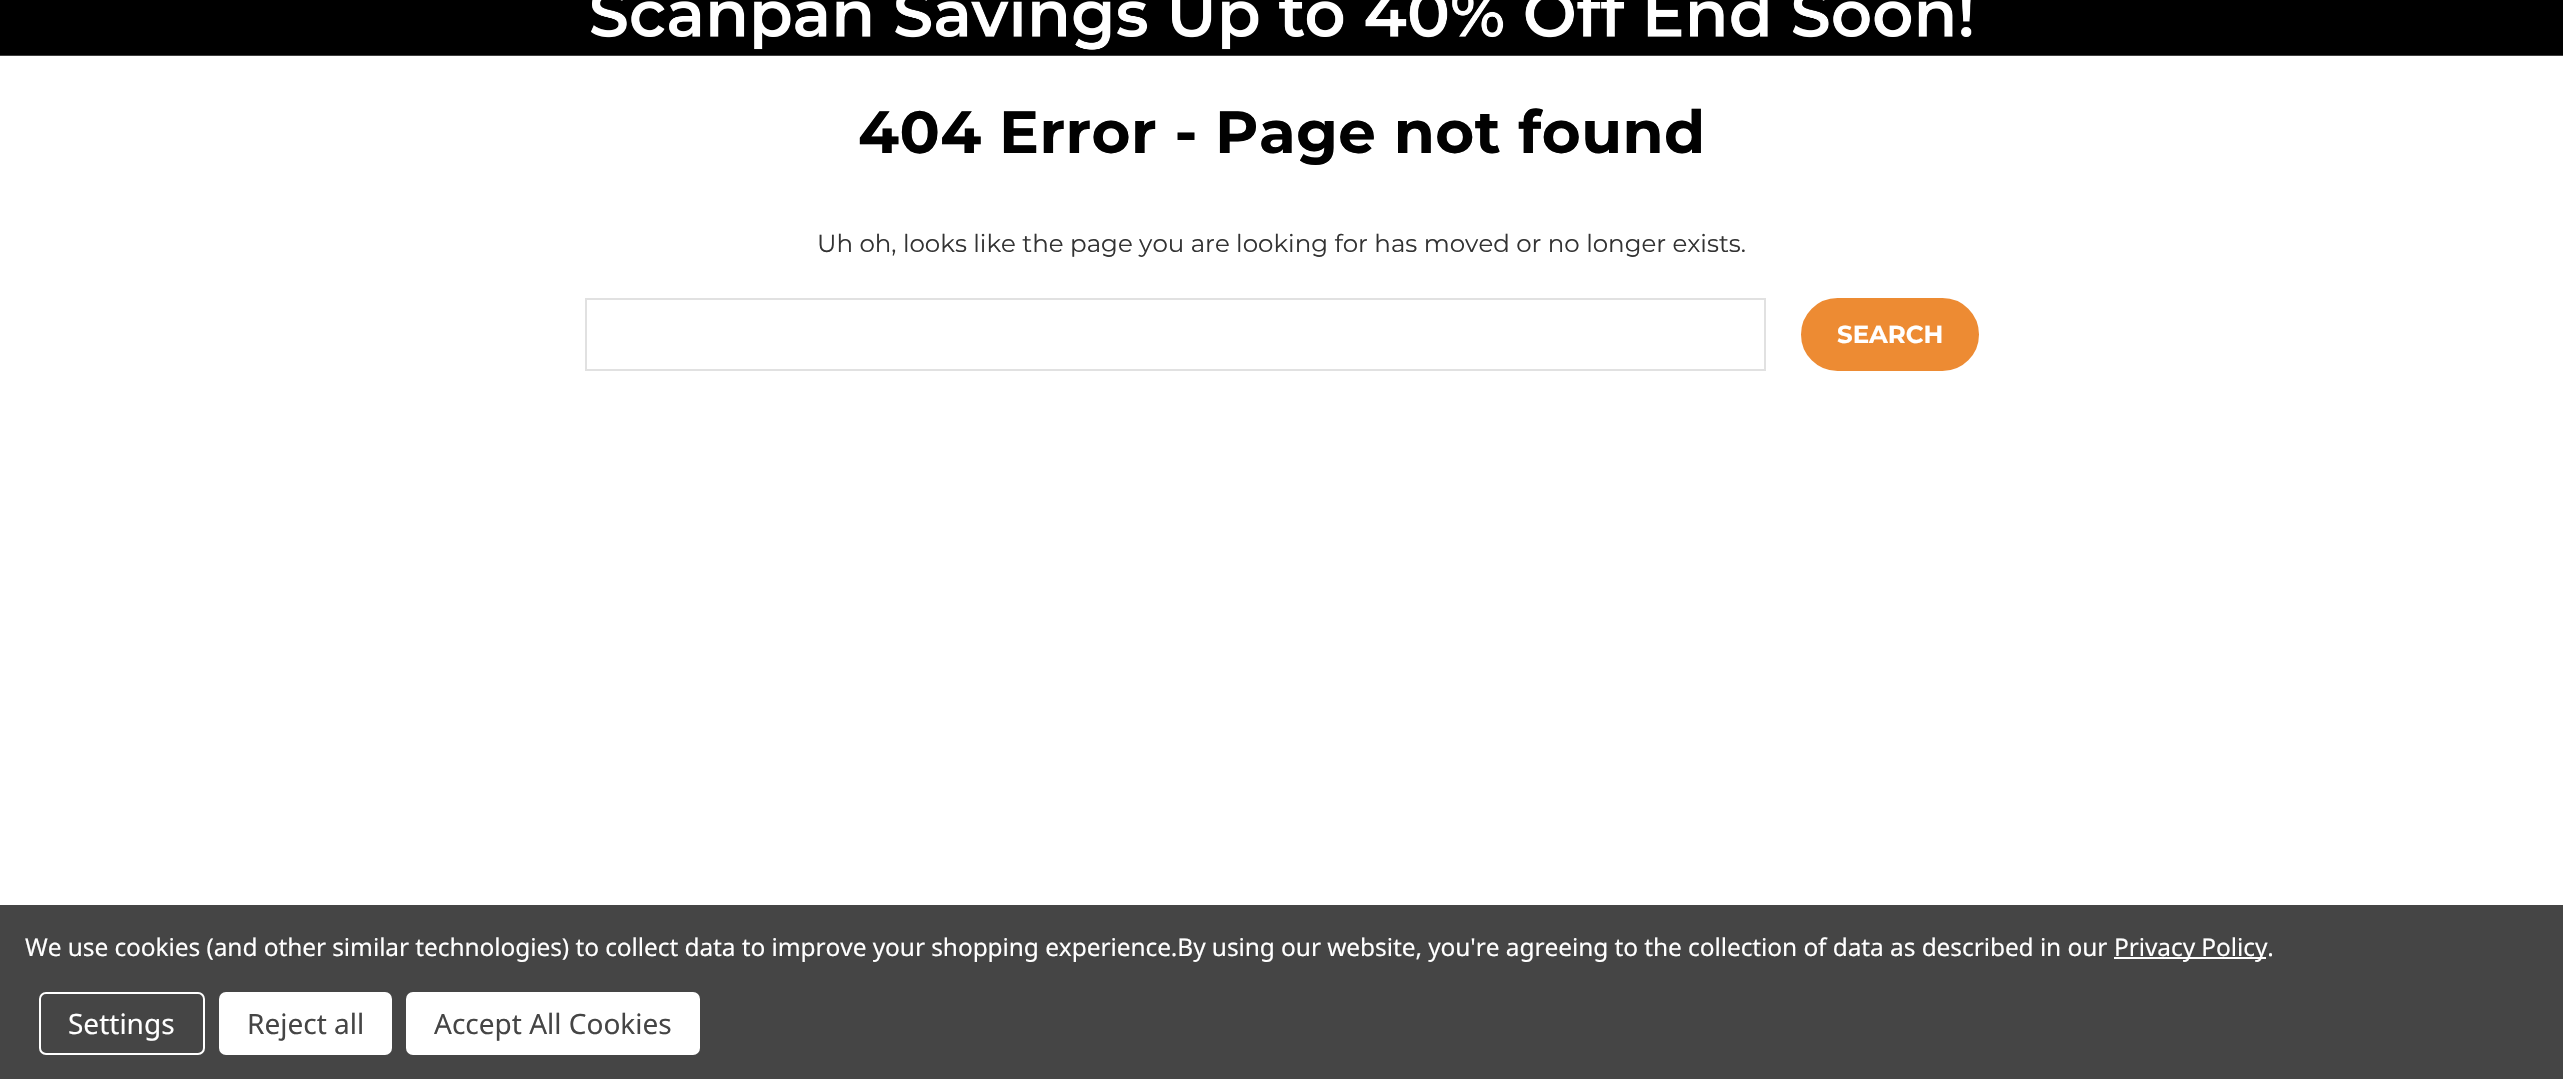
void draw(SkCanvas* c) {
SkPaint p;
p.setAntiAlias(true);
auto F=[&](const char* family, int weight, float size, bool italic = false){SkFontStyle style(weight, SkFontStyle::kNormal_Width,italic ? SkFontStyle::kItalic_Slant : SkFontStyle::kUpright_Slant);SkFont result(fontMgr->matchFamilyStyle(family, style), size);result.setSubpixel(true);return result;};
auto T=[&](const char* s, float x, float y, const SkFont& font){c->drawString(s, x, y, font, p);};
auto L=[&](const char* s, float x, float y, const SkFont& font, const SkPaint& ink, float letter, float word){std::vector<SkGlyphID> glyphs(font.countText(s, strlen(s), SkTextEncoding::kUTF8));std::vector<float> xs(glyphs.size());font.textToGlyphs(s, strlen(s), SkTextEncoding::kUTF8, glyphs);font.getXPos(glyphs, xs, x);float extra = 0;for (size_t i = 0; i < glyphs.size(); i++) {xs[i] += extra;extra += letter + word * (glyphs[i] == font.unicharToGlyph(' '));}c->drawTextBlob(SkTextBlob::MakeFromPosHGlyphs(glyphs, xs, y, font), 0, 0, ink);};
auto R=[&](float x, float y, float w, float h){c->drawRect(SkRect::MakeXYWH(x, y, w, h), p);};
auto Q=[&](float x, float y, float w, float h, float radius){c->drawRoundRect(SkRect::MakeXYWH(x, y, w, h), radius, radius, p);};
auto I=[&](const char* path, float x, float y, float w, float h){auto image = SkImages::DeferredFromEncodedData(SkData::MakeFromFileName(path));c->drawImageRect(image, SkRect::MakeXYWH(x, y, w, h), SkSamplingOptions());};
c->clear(0xffffffff);
I("1.png",0,0,2563,56);
auto f1 = F("Montserrat",700,59.5);
p.setColor(0xff010101);
L("404 Error - Page not found",858,153,f1,p,.45,0);
auto f2 = F("Montserrat",100,24.5);
p.setColor(0xff333333);
T("Uh oh, looks like the page you are looking for has moved or no longer exists.",817,252,f2);
p.setStroke(true);
p.setStrokeWidth(2);
p.setColor(0xffe1e1e1);
c->drawRect(SkRect::MakeXYWH(586,299,1179,71),p);
p.setStroke(false);
p.setColor(0xffed8b33);
c->drawRoundRect(SkRect::MakeXYWH(1802,299,176,71),35.5,35.5,p);
p.setStroke(true);
c->drawRoundRect(SkRect::MakeXYWH(1802,299,176,71),35.5,35.5,p);
auto f3 = F("Montserrat",700,24.5);
p.setStroke(false);
p.setColor(0xffffffff);
T("SEARCH",1837,343,f3);
p.setColor(0xff454545);
R(0,905,2563,174);
auto f4 = F("Noto Sans",400,24.5);
p.setColor(0xffffffff);
L("We use cookies (and other similar technologies) to collect data to improve your shopping experience.By using our website, you're agreeing to the collection of data as described in our",25,956,f4,p,-.09,0);
R(2114,957,152,2);
L("Privacy Policy.",2114,956,f4,p,-.09,0);
p.setStroke(true);
c->drawRoundRect(SkRect::MakeXYWH(40,993,164,61),6,6,p);
auto f5 = F("Noto Sans",400,28);
p.setStroke(false);
T("Settings",68,1034,f5);
Q(219,992,173,63,7);
p.setColor(0xff454545);
T("Reject all",247,1034,f5);
p.setColor(0xffffffff);
Q(406,992,294,63,7);
p.setColor(0xff454545);
T("Accept All Cookies",434,1034,f5);
}
